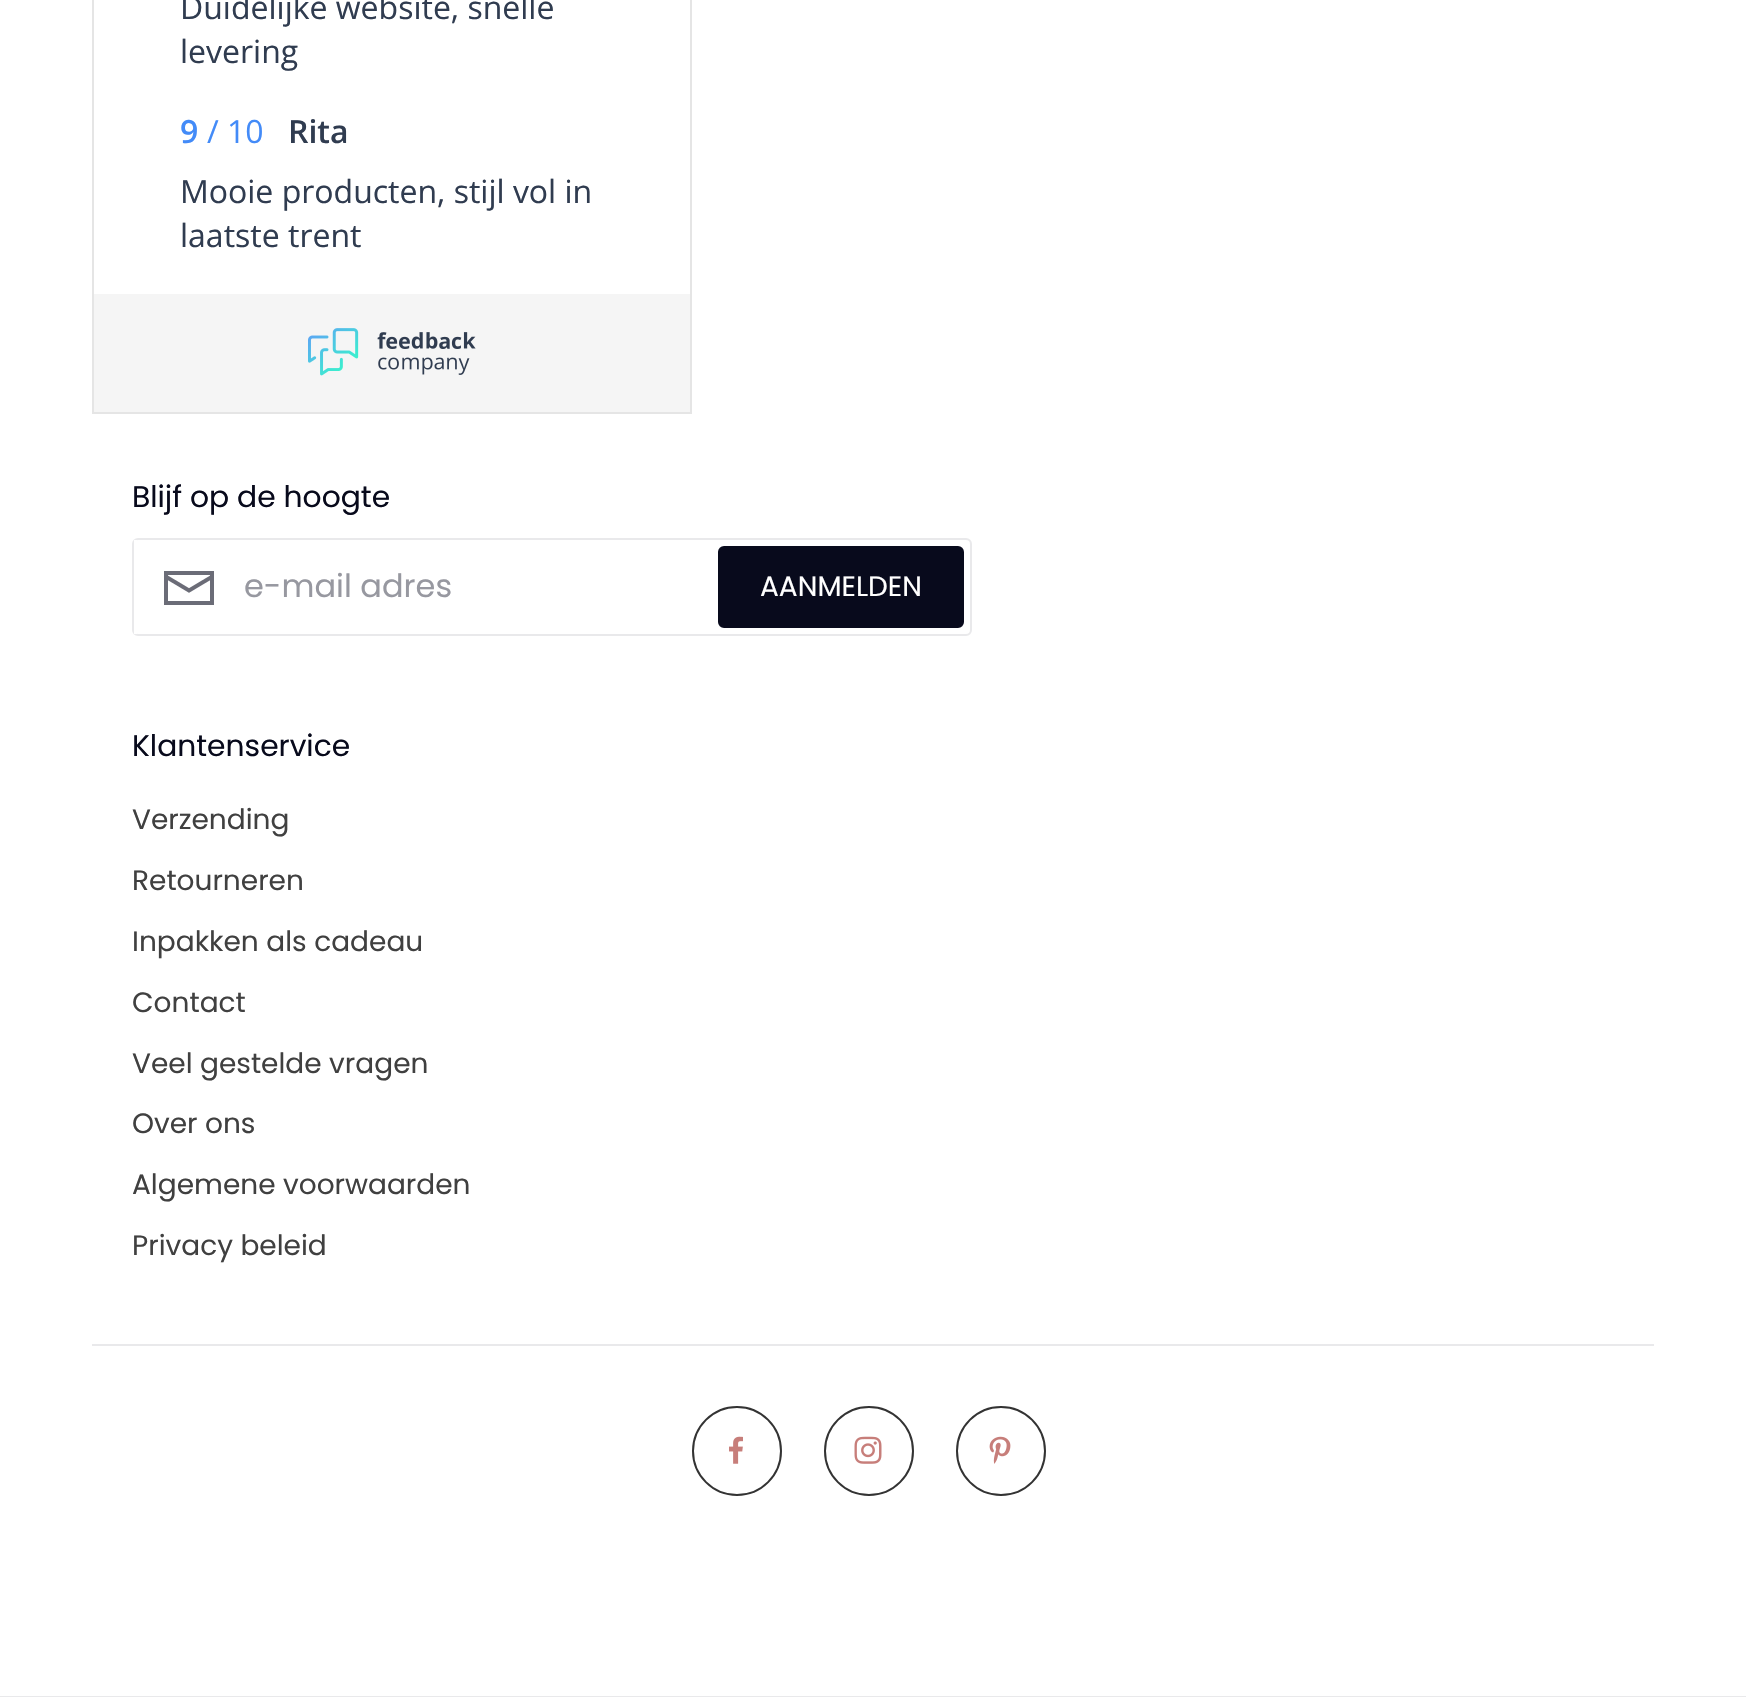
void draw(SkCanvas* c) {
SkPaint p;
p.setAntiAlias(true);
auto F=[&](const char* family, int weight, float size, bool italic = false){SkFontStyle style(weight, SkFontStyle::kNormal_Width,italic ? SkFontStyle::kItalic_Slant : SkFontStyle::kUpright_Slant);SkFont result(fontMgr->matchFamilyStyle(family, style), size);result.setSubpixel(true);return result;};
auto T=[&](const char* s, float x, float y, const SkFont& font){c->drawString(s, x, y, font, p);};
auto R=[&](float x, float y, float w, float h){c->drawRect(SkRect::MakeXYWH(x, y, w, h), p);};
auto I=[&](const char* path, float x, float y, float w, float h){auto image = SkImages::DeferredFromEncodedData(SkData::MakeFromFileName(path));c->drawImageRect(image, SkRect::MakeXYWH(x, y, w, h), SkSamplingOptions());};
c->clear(0xffffffff);
p.setColor(0xffe9e9eb);
R(92,1344,1562,2);
p.setStroke(true);
p.setStrokeWidth(2);
p.setColor(0xffe5e5e5);
c->drawRect(SkRect::MakeXYWH(93,-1,598,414),p);
auto f1 = F("Open Sans",400,32);
p.setStroke(false);
p.setColor(0xff303c50);
T("Duidelijke website, snelle",180,19,f1);
T("levering",180,63,f1);
auto f2 = F("Open Sans",600,32);
p.setColor(0xff438bf8);
T("9",180,143,f2);
T("/ 10",207,143,f1);
p.setColor(0xff303c50);
T("Rita",288,143,f2);
T("Mooie producten, stijl vol in",180,203,f1);
T("laatste trent",180,247,f1);
p.setColor(0xfff5f5f5);
R(94,294,596,118);
I("1.png",308,328,168,48);
auto f3 = F("Poppins",400,29.75);
p.setColor(0xff080a1c);
T("Blijf op de hoogte",132,507,f3);
p.setStroke(true);
p.setColor(0xffe9e9eb);
c->drawRoundRect(SkRect::MakeXYWH(133,539,838,96),5,5,p);
I("2.png",164,571,50,34);
p.setStroke(false);
p.setColor(0xffffffff);
R(134,540,3,94);
auto f4 = F("Poppins",400,32);
p.setColor(0xff9798a0);
T("e-mail adres",244,597,f4);
p.setColor(0xff080a1c);
c->drawRoundRect(SkRect::MakeXYWH(719,547,244,80),5,5,p);
p.setStroke(true);
c->drawRoundRect(SkRect::MakeXYWH(719,547,244,80),5,5,p);
auto f5 = F("Poppins",400,28);
p.setStroke(false);
p.setColor(0xffffffff);
T("AANMELDEN",760,596,f5);
p.setColor(0xff080a1c);
T("Klantenservice",132,756,f3);
p.setColor(0xff404040);
T("Verzending",132,829,f5);
T("Retourneren",132,890,f5);
T("Inpakken als cadeau",132,951,f5);
T("Contact",132,1012,f5);
T("Veel gestelde vragen",132,1073,f5);
T("Over ons",132,1133,f5);
T("Algemene voorwaarden",132,1194,f5);
T("Privacy beleid",132,1255,f5);
p.setStroke(true);
p.setColor(0xff333333);
c->drawCircle(737,1451,44,p);
I("3.png",729,1436,14,28);
c->drawCircle(869,1451,44,p);
I("4.png",854,1436,28,28);
c->drawCircle(1001,1451,44,p);
I("5.png",989,1436,22,28);
p.setStroke(false);
p.setColor(0xffe9e9eb);
R(0,1696,1746,1);
}
